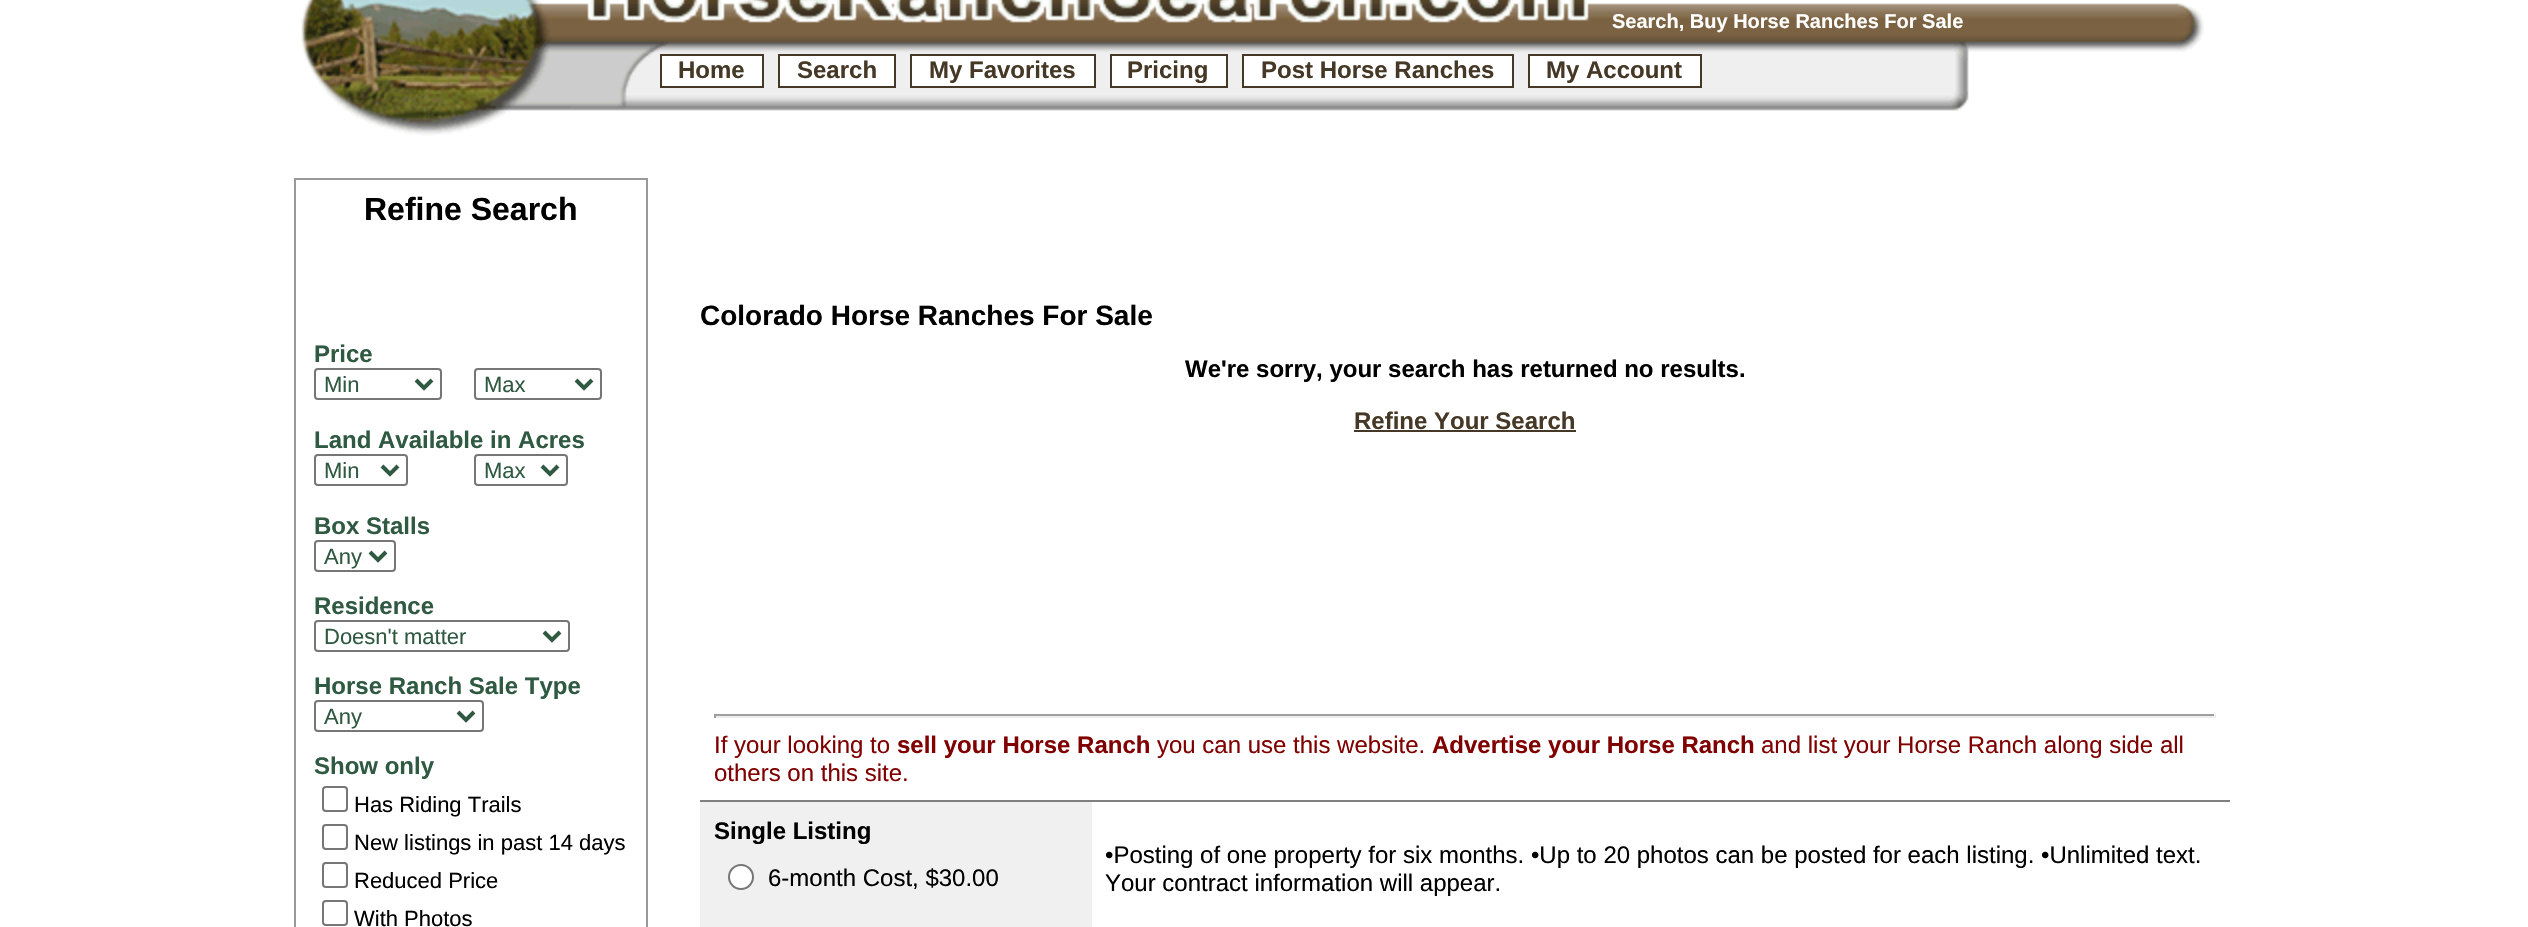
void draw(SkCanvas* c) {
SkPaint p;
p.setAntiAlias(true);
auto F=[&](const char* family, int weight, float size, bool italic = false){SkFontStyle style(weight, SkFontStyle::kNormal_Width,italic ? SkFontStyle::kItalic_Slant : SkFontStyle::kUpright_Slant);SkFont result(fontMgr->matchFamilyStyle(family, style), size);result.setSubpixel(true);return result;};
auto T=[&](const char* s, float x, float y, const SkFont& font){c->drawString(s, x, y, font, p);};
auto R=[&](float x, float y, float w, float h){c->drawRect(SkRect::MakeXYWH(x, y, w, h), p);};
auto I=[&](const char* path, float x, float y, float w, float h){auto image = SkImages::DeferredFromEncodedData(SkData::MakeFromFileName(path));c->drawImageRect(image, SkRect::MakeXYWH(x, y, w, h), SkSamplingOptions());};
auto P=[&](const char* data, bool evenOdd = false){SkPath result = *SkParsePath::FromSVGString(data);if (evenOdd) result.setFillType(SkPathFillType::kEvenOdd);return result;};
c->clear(0xffffffff);
I("1.png",301,0,1903,136);
auto f1 = F("Liberation Sans",700,20);
p.setColor(0xffffffff);
T("Search, Buy Horse Ranches For Sale",1612,28,f1);
c->drawRect(SkRect::MakeXYWH(661,55,102,32),p);
p.setStroke(true);
p.setStrokeWidth(2);
p.setColor(0xff463826);
c->drawRect(SkRect::MakeXYWH(661,55,102,32),p);
auto f2 = F("Liberation Sans",700,24);
p.setStroke(false);
T("Home",678,78,f2);
p.setColor(0xffffffff);
c->drawRect(SkRect::MakeXYWH(779,55,116,32),p);
p.setStroke(true);
p.setColor(0xff463826);
c->drawRect(SkRect::MakeXYWH(779,55,116,32),p);
p.setStroke(false);
T("Search",797,78,f2);
p.setColor(0xffffffff);
c->drawRect(SkRect::MakeXYWH(911,55,184,32),p);
p.setStroke(true);
p.setColor(0xff463826);
c->drawRect(SkRect::MakeXYWH(911,55,184,32),p);
p.setStroke(false);
T("My Favorites",929,78,f2);
p.setColor(0xffffffff);
c->drawRect(SkRect::MakeXYWH(1111,55,116,32),p);
p.setStroke(true);
p.setColor(0xff463826);
c->drawRect(SkRect::MakeXYWH(1111,55,116,32),p);
p.setStroke(false);
T("Pricing",1127,78,f2);
p.setColor(0xffffffff);
c->drawRect(SkRect::MakeXYWH(1243,55,270,32),p);
p.setStroke(true);
p.setColor(0xff463826);
c->drawRect(SkRect::MakeXYWH(1243,55,270,32),p);
p.setStroke(false);
T("Post Horse Ranches",1261,78,f2);
p.setColor(0xffffffff);
c->drawRect(SkRect::MakeXYWH(1529,55,172,32),p);
p.setStroke(true);
p.setColor(0xff463826);
c->drawRect(SkRect::MakeXYWH(1529,55,172,32),p);
p.setStroke(false);
T("My Account",1546,78,f2);
p.setStroke(true);
p.setColor(0xff999999);
c->drawRect(SkRect::MakeXYWH(295,179,352,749),p);
auto f3 = F("Liberation Sans",700,32);
p.setStroke(false);
p.setColor(0xff000000);
T("Refine Search",364,220,f3);
p.setColor(0xff2f5941);
T("Price",314,362,f2);
p.setStroke(true);
p.setColor(0xff767676);
c->drawRoundRect(SkRect::MakeXYWH(315,369,126,30),3,3,p);
p.setStrokeWidth(4);
p.setColor(0xff2f5941);
c->drawPath(P("M416 380l8 8l8-8"),p);
auto f4 = F("Liberation Sans",400,22);
p.setStroke(false);
T("Min",324,392,f4);
p.setStroke(true);
p.setStrokeWidth(2);
p.setColor(0xff767676);
c->drawRoundRect(SkRect::MakeXYWH(475,369,126,30),3,3,p);
p.setStrokeWidth(4);
p.setColor(0xff2f5941);
c->drawPath(P("M576 380l8 8l8-8"),p);
p.setStroke(false);
T("Max",484,392,f4);
T("Land Available in Acres",314,448,f2);
p.setStroke(true);
p.setStrokeWidth(2);
p.setColor(0xff767676);
c->drawRoundRect(SkRect::MakeXYWH(315,455,92,30),3,3,p);
p.setStrokeWidth(4);
p.setColor(0xff2f5941);
c->drawPath(P("M382 466l8 8l8-8"),p);
p.setStroke(false);
T("Min",324,478,f4);
p.setStroke(true);
p.setStrokeWidth(2);
p.setColor(0xff767676);
c->drawRoundRect(SkRect::MakeXYWH(475,455,92,30),3,3,p);
p.setStrokeWidth(4);
p.setColor(0xff2f5941);
c->drawPath(P("M542 466l8 8l8-8"),p);
p.setStroke(false);
T("Max",484,478,f4);
T("Box Stalls",314,534,f2);
p.setStroke(true);
p.setStrokeWidth(2);
p.setColor(0xff767676);
c->drawRoundRect(SkRect::MakeXYWH(315,541,80,30),3,3,p);
p.setStrokeWidth(4);
p.setColor(0xff2f5941);
c->drawPath(P("M370 552l8 8l8-8"),p);
p.setStroke(false);
T("Any",324,564,f4);
T("Residence",314,614,f2);
p.setStroke(true);
p.setStrokeWidth(2);
p.setColor(0xff767676);
c->drawRoundRect(SkRect::MakeXYWH(315,621,254,30),3,3,p);
p.setStrokeWidth(4);
p.setColor(0xff2f5941);
c->drawPath(P("M544 632l8 8l8-8"),p);
p.setStroke(false);
T("Doesn't matter",324,644,f4);
T("Horse Ranch Sale Type",314,694,f2);
p.setStroke(true);
p.setStrokeWidth(2);
p.setColor(0xff767676);
c->drawRoundRect(SkRect::MakeXYWH(315,701,168,30),3,3,p);
p.setStrokeWidth(4);
p.setColor(0xff2f5941);
c->drawPath(P("M458 712l8 8l8-8"),p);
p.setStroke(false);
T("Any",324,724,f4);
T("Show only",314,774,f2);
p.setStroke(true);
p.setStrokeWidth(2);
p.setColor(0xff767676);
c->drawRoundRect(SkRect::MakeXYWH(323,787,24,24),3,3,p);
p.setStroke(false);
p.setColor(0xff000000);
T("Has Riding Trails",354,812,f4);
p.setStroke(true);
p.setColor(0xff767676);
c->drawRoundRect(SkRect::MakeXYWH(323,825,24,24),3,3,p);
p.setStroke(false);
p.setColor(0xff000000);
T("New listings in past 14 days",354,850,f4);
p.setStroke(true);
p.setColor(0xff767676);
c->drawRoundRect(SkRect::MakeXYWH(323,863,24,24),3,3,p);
p.setStroke(false);
p.setColor(0xff000000);
T("Reduced Price",354,888,f4);
p.setStroke(true);
p.setColor(0xff767676);
c->drawRoundRect(SkRect::MakeXYWH(323,901,24,24),3,3,p);
p.setStroke(false);
p.setColor(0xff000000);
T("With Photos",354,926,f4);
auto f5 = F("Liberation Sans",700,28);
T("Colorado Horse Ranches For Sale",700,325,f5);
T("We're sorry, your search has returned no results.",1185,377,f2);
p.setColor(0xff463826);
T("Refine Your Search",1354,429,f2);
R(1354,430,222,2);
p.setColor(0xff9f9f9f);
R(714,714,1502,2);
p.setColor(0xffeeeeee);
R(2214,714,2,4);
R(714,716,1502,2);
p.setColor(0xff9f9f9f);
R(714,714,2,4);
auto f6 = F("Liberation Sans",400,24);
p.setColor(0xff800000);
T("If your looking to",714,753,f6);
T("sell your Horse Ranch",897,753,f2);
T("you can use this website.",1157,753,f6);
T("Advertise your Horse Ranch",1432,753,f2);
T("and list your Horse Ranch along side all",1761,753,f6);
T("others on this site.",714,781,f6);
p.setColor(0xfff0f0f0);
R(700,802,392,125);
p.setColor(0xff808080);
R(700,800,1530,2);
p.setColor(0xff000000);
T("Single Listing",714,839,f2);
p.setColor(0xffffffff);
c->drawCircle(741,877,12,p);
p.setStroke(true);
p.setColor(0xff767676);
c->drawCircle(741,877,12,p);
p.setStroke(false);
p.setColor(0xff000000);
T("6-month Cost, $30.00",768,886,f6);
T("•Posting of one property for six months. •Up to 20 photos can be posted for each listing. •Unlimited text.",1105,863,f6);
T("Your contract information will appear.",1105,891,f6);
}
